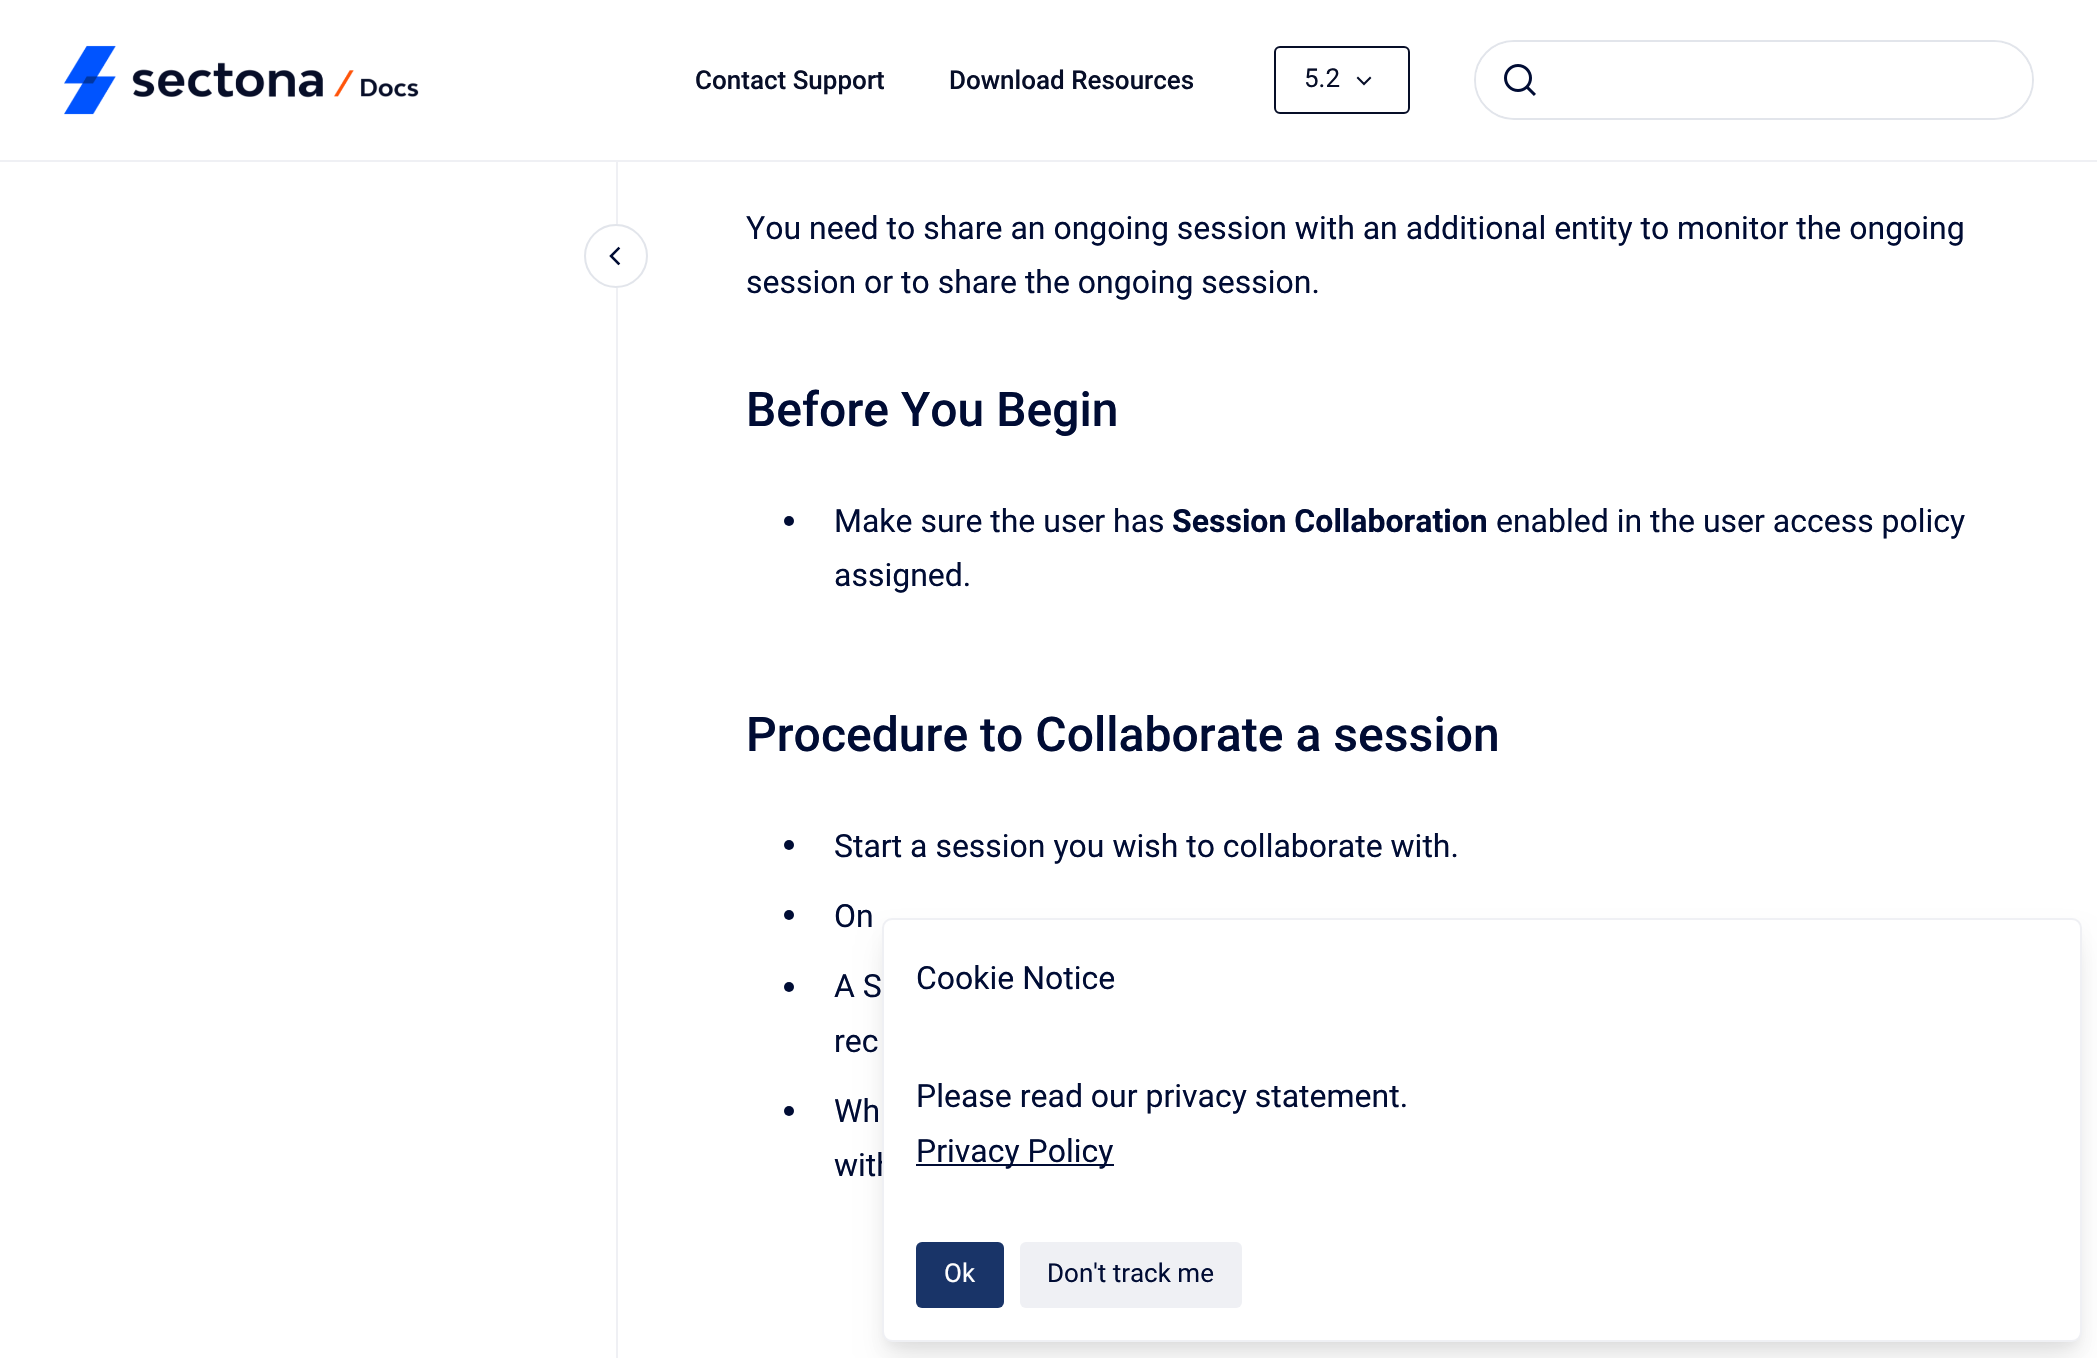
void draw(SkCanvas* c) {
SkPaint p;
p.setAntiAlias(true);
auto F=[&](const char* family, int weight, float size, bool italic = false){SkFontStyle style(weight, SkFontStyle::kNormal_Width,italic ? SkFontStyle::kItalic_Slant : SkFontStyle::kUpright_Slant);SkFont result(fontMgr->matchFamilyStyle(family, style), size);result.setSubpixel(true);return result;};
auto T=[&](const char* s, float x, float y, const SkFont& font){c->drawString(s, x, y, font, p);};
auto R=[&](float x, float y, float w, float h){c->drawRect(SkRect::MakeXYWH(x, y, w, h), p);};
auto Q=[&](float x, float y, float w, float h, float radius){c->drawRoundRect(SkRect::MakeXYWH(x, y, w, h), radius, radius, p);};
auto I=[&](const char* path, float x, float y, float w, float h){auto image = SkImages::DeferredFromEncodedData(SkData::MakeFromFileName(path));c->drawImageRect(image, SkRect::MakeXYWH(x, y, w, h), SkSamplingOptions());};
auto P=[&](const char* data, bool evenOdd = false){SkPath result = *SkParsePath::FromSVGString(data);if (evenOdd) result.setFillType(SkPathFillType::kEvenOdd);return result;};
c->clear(0xffffffff);
p.setColor(0xffeff0f4);
R(0,160,2097,2);
I("1.png",64,45,355,70);
auto f1 = F("Roboto",500,26);
p.setColor(0xff070e28);
T("Contact Support",695,89,f1);
T("Download Resources",949,89,f1);
p.setStroke(true);
p.setStrokeWidth(2);
c->drawRoundRect(SkRect::MakeXYWH(1275,47,134,66),5,5,p);
auto f2 = F("Roboto",400,26);
p.setStroke(false);
T("5.2",1304,87,f2);
p.setStroke(true);
p.setStrokeCap(SkPaint::kSquare_Cap);
c->drawPath(P("M1370 78l-6 6l-6-6"),p);
p.setStrokeCap(SkPaint::kButt_Cap);
p.setColor(0xffe2e5eb);
c->drawRoundRect(SkRect::MakeXYWH(1475,41,558,78),39,39,p);
p.setStroke(false);
p.setColor(0xffffffff);
Q(1476,42,556,76,38);
I("2.png",1504,64,32,32);
p.setColor(0xffeff0f4);
R(616,162,2,1196);
p.setColor(0xffffffff);
c->drawPath(P("M616 288c-18 0-32-14-32-32c0-18 14-32 32-32c18 0 32 14 32 32c0 18-14 32-32 32z"),p);
p.setStroke(true);
p.setColor(0xffe2e5eb);
c->drawPath(P("M616 287c-17 0-31-14-31-31c0-17 14-31 31-31c17 0 31 14 31 31c0 17-14 31-31 31z"),p);
p.setStrokeWidth(2.5);
p.setStrokeCap(SkPaint::kSquare_Cap);
p.setColor(0xff000c34);
c->drawPath(P("M618.5 263.5l-7.5-7.5l7.5-7.5"),p);
auto f3 = F("Roboto",400,32);
p.setStroke(false);
T("You need to share an ongoing session with an additional entity to monitor the ongoing",746,239,f3);
T("session or to share the ongoing session.",746,293,f3);
auto f4 = F("Roboto",500,48);
T("Before You Begin",746,426,f4);
c->drawCircle(789,521,5,p);
T("Make sure the user has",834,532,f3);
auto f5 = F("Roboto",700,32);
T("Session Collaboration",1172,532,f5);
T("enabled in the user access policy",1496,532,f3);
T("assigned.",834,586,f3);
T("Procedure to Collaborate a session",746,751,f4);
c->drawCircle(789,845,5,p);
T("Start a session you wish to collaborate with.",834,857,f3);
c->drawCircle(789,915,5,p);
T("On",834,927,f3);
c->drawCircle(789,987,5,p);
T("A S",834,997,f3);
T("rec",834,1052,f3);
c->drawCircle(789,1111,5,p);
T("Wh",834,1122,f3);
T("with",834,1176,f3);
p.setColor(0x0d000000);
p.setMaskFilter(SkMaskFilter::MakeBlur(kNormal_SkBlurStyle, 6));
c->drawRoundRect(SkRect::MakeXYWH(886,930,1192,416),6,6,p);
p.setMaskFilter(nullptr);
p.setColor(0x1a000000);
p.setMaskFilter(SkMaskFilter::MakeBlur(kNormal_SkBlurStyle, 15));
c->drawRoundRect(SkRect::MakeXYWH(888,944,1188,412),4,4,p);
p.setMaskFilter(nullptr);
p.setColor(0xffffffff);
c->drawRoundRect(SkRect::MakeXYWH(883,919,1198,422),9,9,p);
p.setStroke(true);
p.setStrokeWidth(2);
p.setStrokeCap(SkPaint::kButt_Cap);
p.setColor(0xffeff0f4);
c->drawRoundRect(SkRect::MakeXYWH(883,919,1198,422),9,9,p);
p.setStroke(false);
p.setColor(0xff000c34);
T("Cookie Notice",916,989,f3);
T("Please read our privacy statement.",916,1107,f3);
R(916,1164,198,2);
T("Privacy Policy",916,1162,f3);
p.setColor(0xff193468);
Q(916,1242,88,66,6);
p.setColor(0xffffffff);
T("Ok",944,1282,f2);
p.setColor(0xffeff0f4);
Q(1020,1242,222,66,6);
p.setColor(0xff000c34);
T("Don't track me",1047,1282,f2);
}
